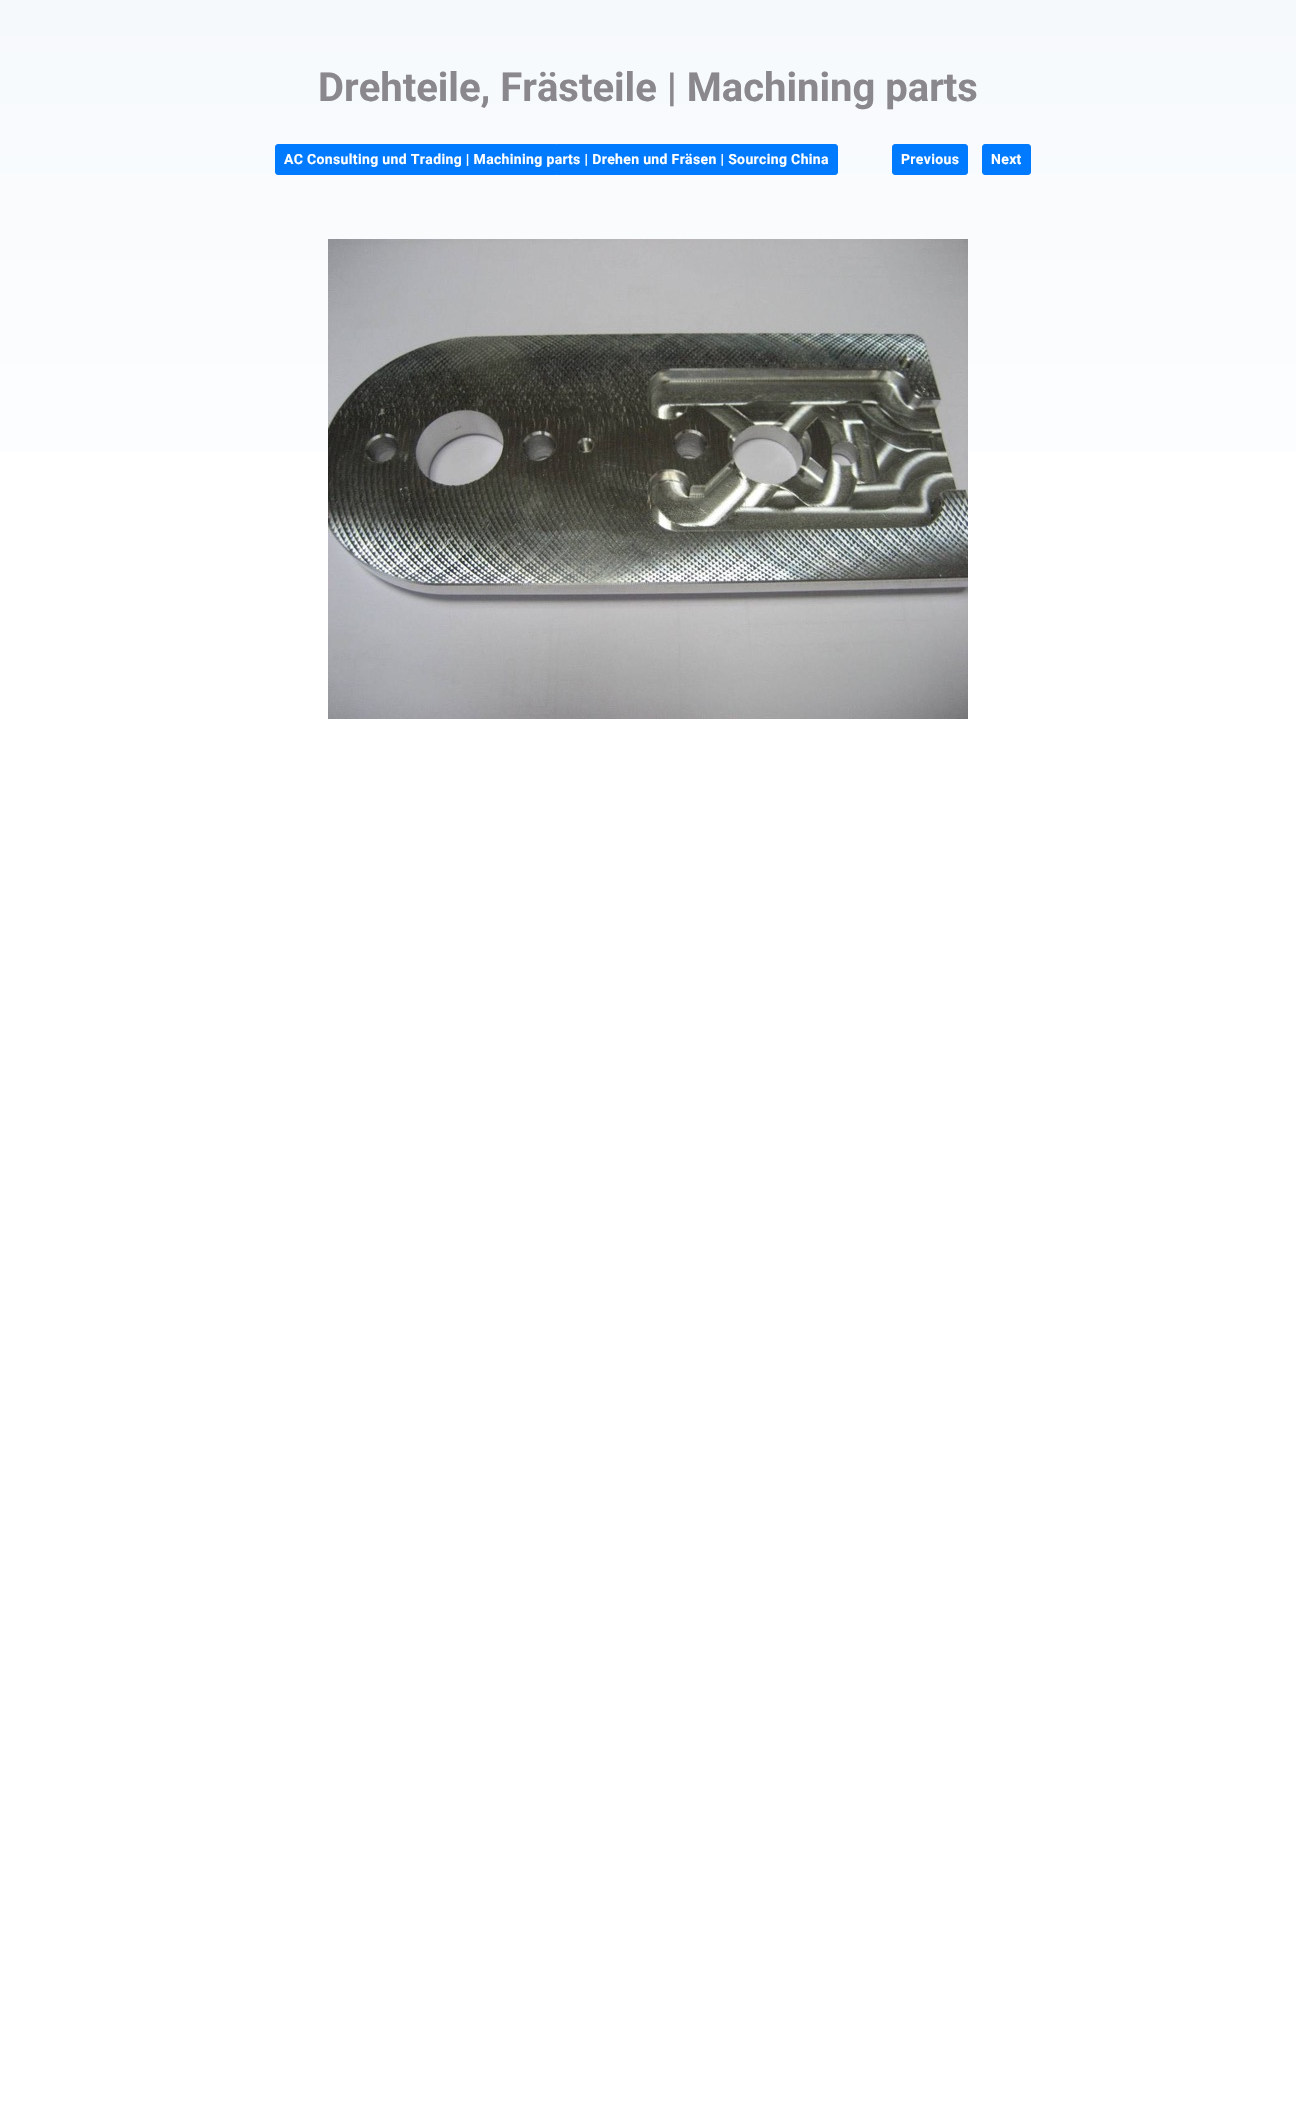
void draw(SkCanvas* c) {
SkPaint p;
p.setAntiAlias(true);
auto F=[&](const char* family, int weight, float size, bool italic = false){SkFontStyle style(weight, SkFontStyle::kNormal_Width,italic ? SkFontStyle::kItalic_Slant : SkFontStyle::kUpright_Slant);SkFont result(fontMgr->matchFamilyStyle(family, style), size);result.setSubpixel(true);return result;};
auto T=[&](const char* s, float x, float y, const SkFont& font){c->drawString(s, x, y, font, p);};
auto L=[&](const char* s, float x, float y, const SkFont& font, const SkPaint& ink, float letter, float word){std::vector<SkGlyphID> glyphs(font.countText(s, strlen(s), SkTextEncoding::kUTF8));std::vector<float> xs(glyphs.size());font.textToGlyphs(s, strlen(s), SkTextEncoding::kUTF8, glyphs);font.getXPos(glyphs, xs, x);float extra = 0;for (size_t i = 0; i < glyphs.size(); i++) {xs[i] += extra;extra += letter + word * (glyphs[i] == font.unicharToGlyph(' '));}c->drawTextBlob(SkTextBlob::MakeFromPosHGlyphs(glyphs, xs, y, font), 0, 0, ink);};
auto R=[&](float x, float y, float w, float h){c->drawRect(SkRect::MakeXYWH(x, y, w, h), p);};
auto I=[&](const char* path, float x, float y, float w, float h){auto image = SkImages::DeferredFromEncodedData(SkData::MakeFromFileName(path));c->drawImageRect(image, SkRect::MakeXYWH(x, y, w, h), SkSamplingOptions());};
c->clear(0xffffffff);
{
const SkColor colors[] = {0xfff6f9fc,0xffffffff};
const float stops[] = {0,.8};
const SkPoint ends[] = {{648,0}, {648,783}};
p.setShader(SkGradientShader::MakeLinear(ends, colors, stops, 2, SkTileMode::kClamp));
p.setAlpha(255);
}
R(0,0,1296,452);
auto f1 = F("Roboto",700,40);
p.setShader(nullptr);
p.setColor(0xff8a888c);
T("Drehteile, Frästeile | Machining parts",318,101,f1);
p.setColor(0xff007bff);
c->drawRoundRect(SkRect::MakeXYWH(275.5,144.5,562,30),2.5,2.5,p);
p.setStroke(true);
p.setStrokeWidth(1);
c->drawRoundRect(SkRect::MakeXYWH(275.5,144.5,562,30),2.5,2.5,p);
auto f2 = F("Roboto",700,14);
p.setStroke(false);
p.setColor(0xffffffff);
L("AC Consulting und Trading | Machining parts | Drehen und Fräsen | Sourcing China",284,164,f2,p,.35,0);
p.setColor(0xff007bff);
c->drawRoundRect(SkRect::MakeXYWH(892.5,144.5,75,30),2.5,2.5,p);
p.setStroke(true);
c->drawRoundRect(SkRect::MakeXYWH(892.5,144.5,75,30),2.5,2.5,p);
p.setStroke(false);
p.setColor(0xffffffff);
L("Previous",901,164,f2,p,.35,0);
p.setColor(0xff007bff);
c->drawRoundRect(SkRect::MakeXYWH(982.5,144.5,48,30),2.5,2.5,p);
p.setStroke(true);
c->drawRoundRect(SkRect::MakeXYWH(982.5,144.5,48,30),2.5,2.5,p);
p.setStroke(false);
p.setColor(0xffffffff);
L("Next",991,164,f2,p,.35,0);
I("1.png",328,239,640,480);
}
